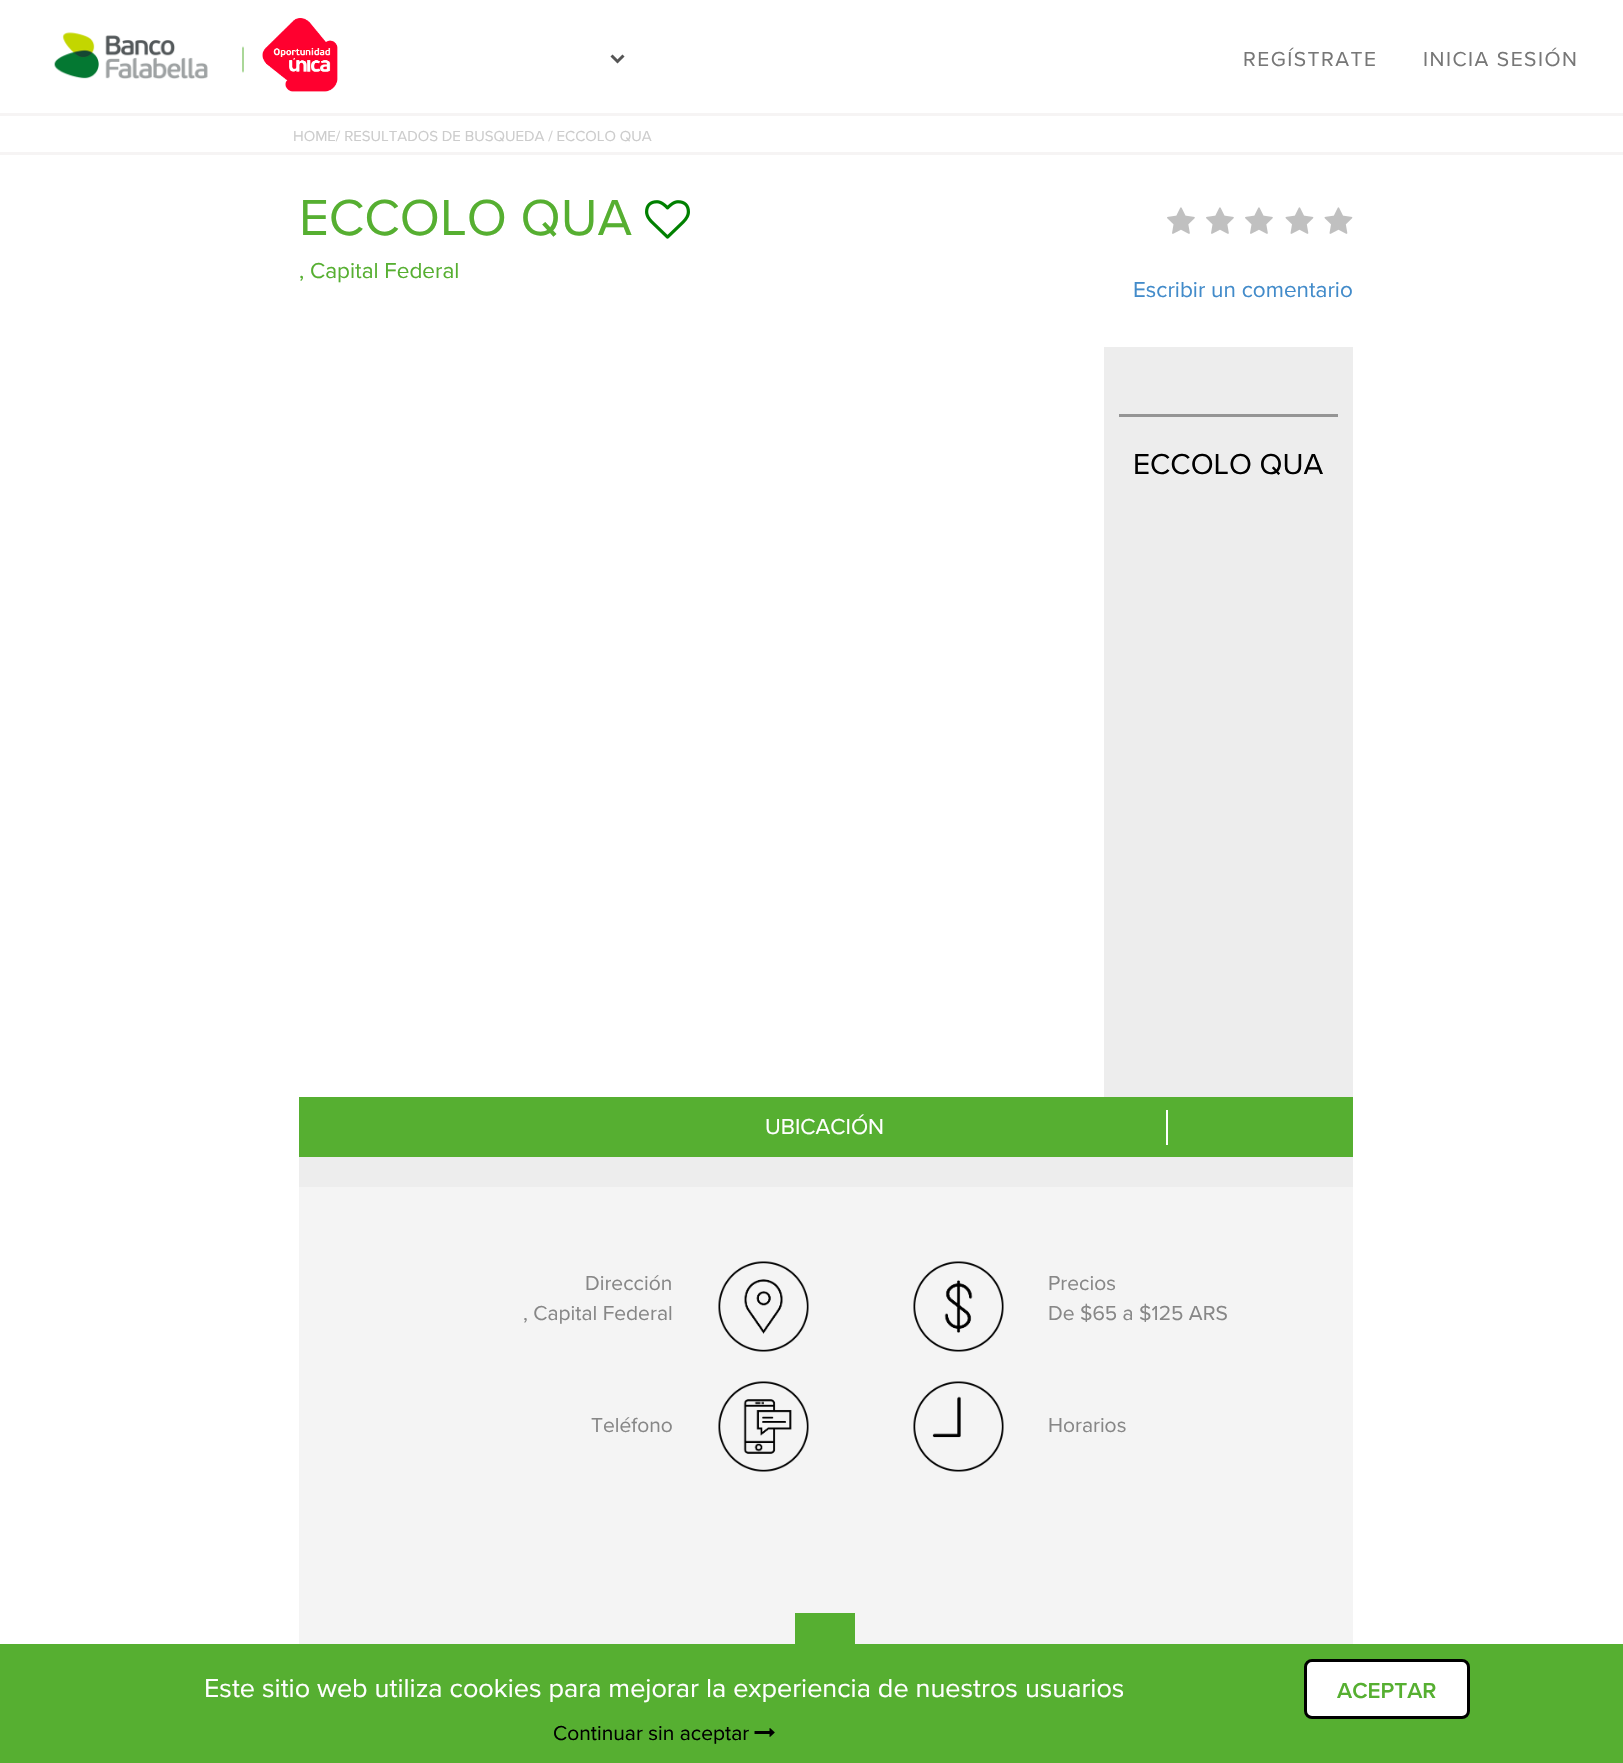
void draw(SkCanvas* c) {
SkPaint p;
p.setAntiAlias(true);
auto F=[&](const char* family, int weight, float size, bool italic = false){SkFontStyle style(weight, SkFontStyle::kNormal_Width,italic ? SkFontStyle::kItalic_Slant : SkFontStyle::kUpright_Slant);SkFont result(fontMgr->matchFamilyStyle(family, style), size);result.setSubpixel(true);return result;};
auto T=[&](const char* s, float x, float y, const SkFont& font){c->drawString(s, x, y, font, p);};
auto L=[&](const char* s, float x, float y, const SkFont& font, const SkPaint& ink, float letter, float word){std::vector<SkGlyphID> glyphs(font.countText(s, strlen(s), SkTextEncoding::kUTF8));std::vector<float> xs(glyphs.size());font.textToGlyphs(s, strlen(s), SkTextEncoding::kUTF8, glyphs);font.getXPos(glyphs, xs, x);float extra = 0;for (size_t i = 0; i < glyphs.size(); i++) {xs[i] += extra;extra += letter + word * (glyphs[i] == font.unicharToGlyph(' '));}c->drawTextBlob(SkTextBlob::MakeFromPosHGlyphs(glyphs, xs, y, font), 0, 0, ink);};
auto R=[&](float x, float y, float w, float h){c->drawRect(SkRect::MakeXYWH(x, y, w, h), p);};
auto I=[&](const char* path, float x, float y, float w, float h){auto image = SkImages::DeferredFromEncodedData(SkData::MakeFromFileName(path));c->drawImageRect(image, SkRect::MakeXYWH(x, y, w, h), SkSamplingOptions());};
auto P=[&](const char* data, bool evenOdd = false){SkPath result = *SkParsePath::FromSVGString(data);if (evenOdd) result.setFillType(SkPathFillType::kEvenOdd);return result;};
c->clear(0xffffffff);
I("1.png",54,32,190,47);
I("2.png",262,18,76,74);
p.setStroke(true);
p.setStrokeWidth(3);
p.setColor(0xff555555);
c->drawPath(P("M611.5 55.5l6 6l6-6"),p);
auto f1 = F("Proxima Nova",400,21);
p.setStroke(false);
p.setColor(0xff777777);
L("REGÍSTRATE",1243,66,f1,p,1.5,0);
L("INICIA SESIÓN",1423,66,f1,p,1.5,0);
p.setColor(0xfff6f4f4);
R(0,113,1623,3);
auto f2 = F("Proxima Nova",400,15);
p.setColor(0xffcccccc);
T("HOME/ RESULTADOS DE BUSQUEDA / ECCOLO QUA",293,141,f2);
p.setColor(0xfff6f4f4);
R(0,152,1623,3);
auto f3 = F("Proxima Nova",400,52.5);
p.setColor(0xff56af31);
T("ECCOLO QUA",299,235,f3);
I("3.png",645,200,45,39);
auto f4 = F("Proxima Nova",400,22.5);
T(", Capital Federal",299,278,f4);
I("4.png",1167,207,28,27);
I("4.png",1206,207,28,27);
I("4.png",1245,207,28,27);
I("5.png",1285,207,29,27);
I("5.png",1324,207,29,27);
p.setColor(0xff428bca);
T("Escribir un comentario",1133,297,f4);
p.setColor(0xffededed);
R(1104,347,249,750);
p.setColor(0xff959595);
R(1119,414,219,3);
auto f5 = F("Proxima Nova",400,30);
p.setColor(0xff000000);
T("ECCOLO QUA",1133,474,f5);
p.setColor(0xff56af31);
R(299,1097,1054,60);
p.setColor(0xffffffff);
R(1166,1110,2,35);
T("UBICACIÓN",765,1134,f4);
p.setColor(0xffededed);
R(299,1157,1054,30);
p.setColor(0xfff4f4f4);
R(299,1187,1054,457);
p.setColor(0xff878787);
T("Dirección",585,1290,f1);
T(", Capital Federal",523,1320,f1);
I("6.png",718,1261,91,91);
I("7.png",913,1261,91,91);
T("Precios",1048,1290,f1);
T("De $65 a $125 ARS",1048,1320,f1);
T("Teléfono",591,1432,f1);
I("8.png",718,1381,91,91);
I("9.png",913,1381,91,91);
T("Horarios",1048,1432,f1);
p.setColor(0xff56af31);
R(795,1613,60,31);
R(0,1644,1623,119);
auto f6 = F("Proxima Nova",400,27);
p.setColor(0xffffffff);
T("Este sitio web utiliza cookies para mejorar la experiencia de nuestros usuarios",204,1697,f6);
c->drawRoundRect(SkRect::MakeXYWH(1305.5,1660.5,163,57),6.5,6.5,p);
p.setStroke(true);
p.setColor(0xff000000);
c->drawRoundRect(SkRect::MakeXYWH(1305.5,1660.5,163,57),6.5,6.5,p);
auto f7 = F("Proxima Nova",600,22.5);
p.setStroke(false);
p.setColor(0xff56af31);
T("ACEPTAR",1337,1698,f7);
p.setColor(0xff000000);
T("Continuar sin aceptar",553,1740,f1);
I("10.png",754,1728,21,9);
}
